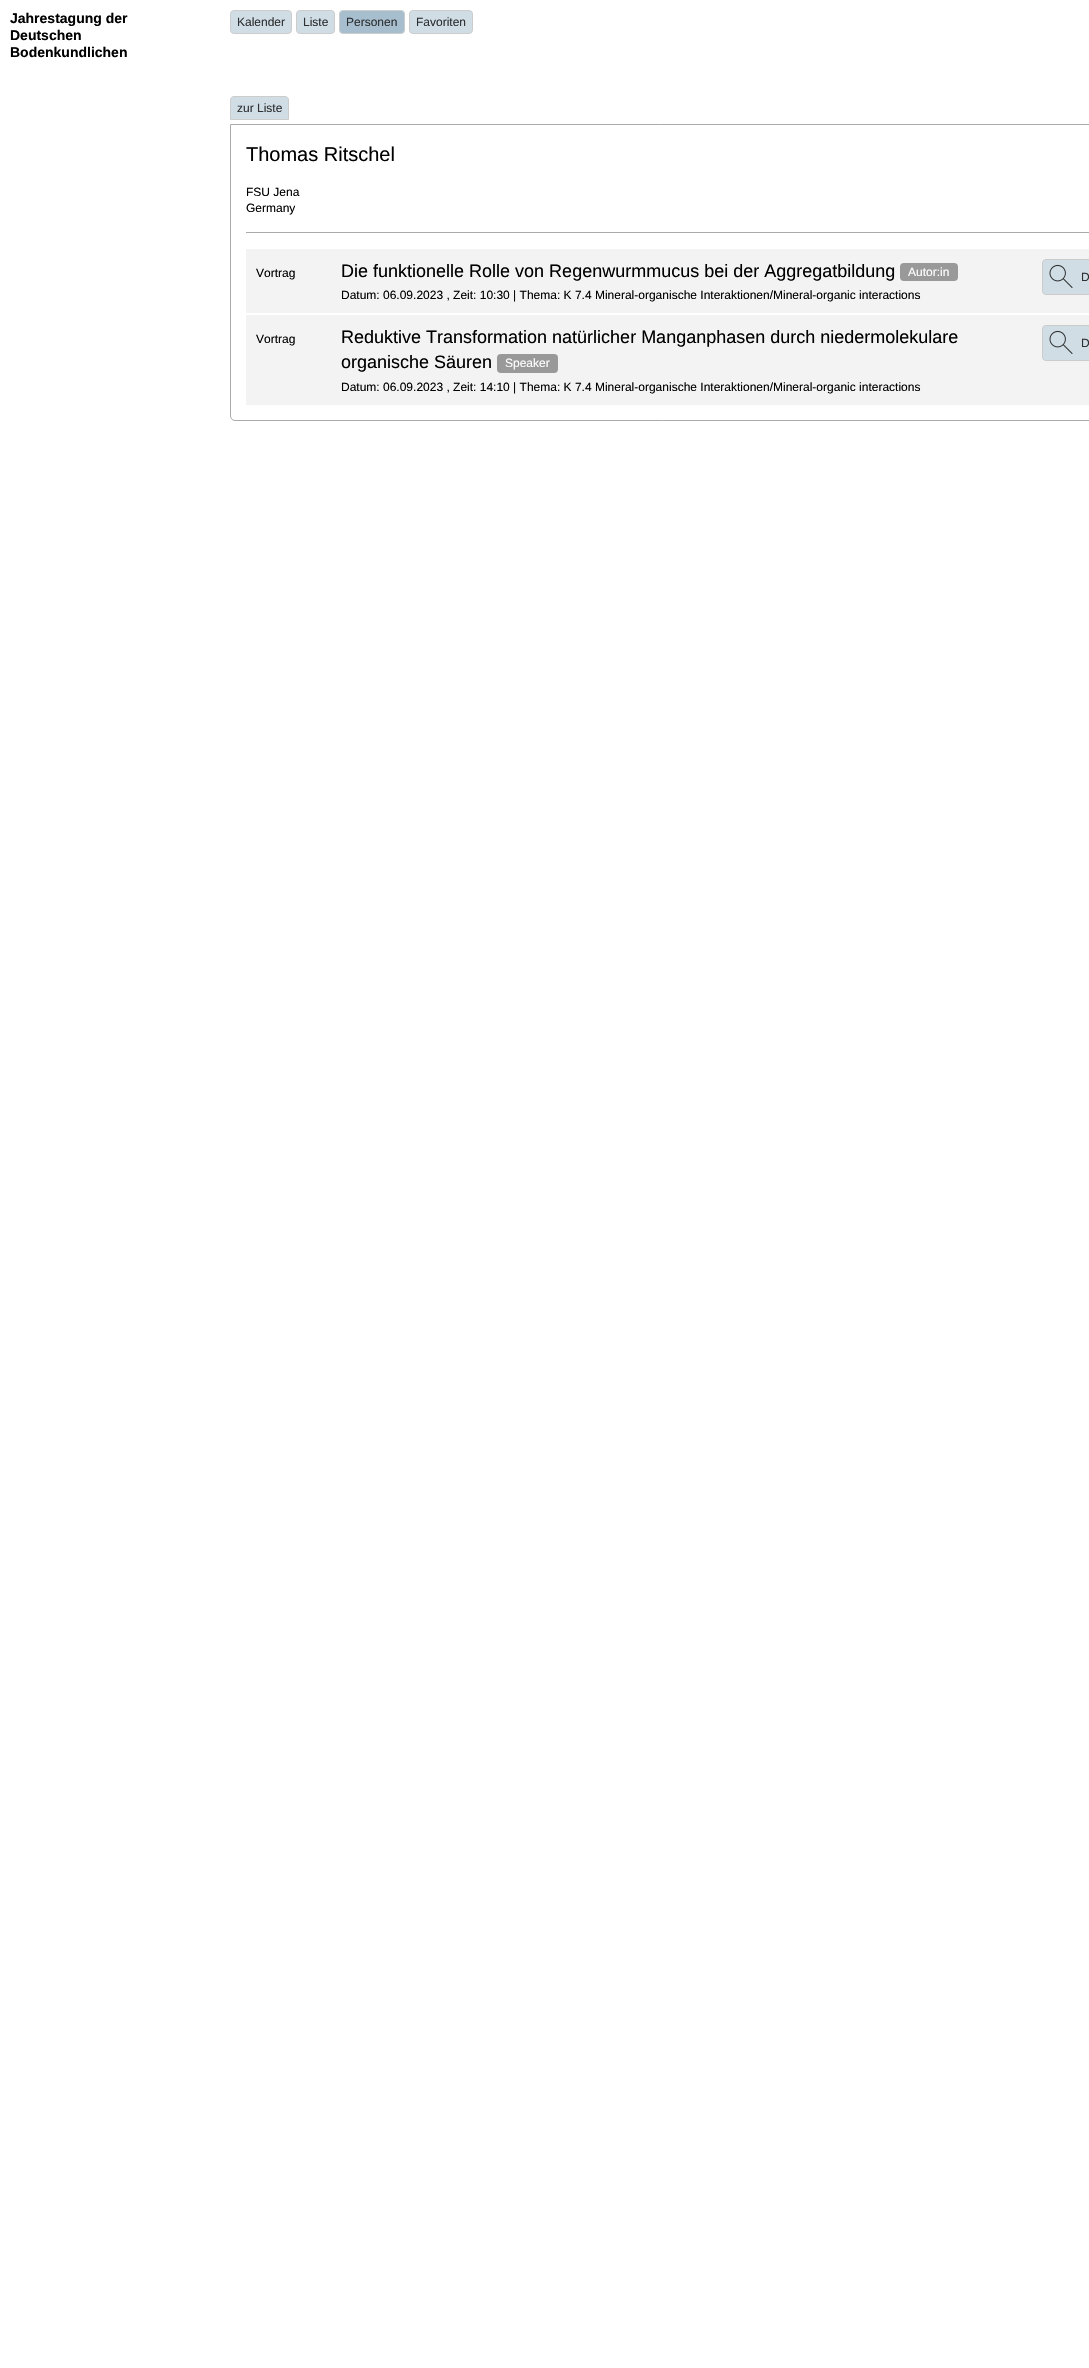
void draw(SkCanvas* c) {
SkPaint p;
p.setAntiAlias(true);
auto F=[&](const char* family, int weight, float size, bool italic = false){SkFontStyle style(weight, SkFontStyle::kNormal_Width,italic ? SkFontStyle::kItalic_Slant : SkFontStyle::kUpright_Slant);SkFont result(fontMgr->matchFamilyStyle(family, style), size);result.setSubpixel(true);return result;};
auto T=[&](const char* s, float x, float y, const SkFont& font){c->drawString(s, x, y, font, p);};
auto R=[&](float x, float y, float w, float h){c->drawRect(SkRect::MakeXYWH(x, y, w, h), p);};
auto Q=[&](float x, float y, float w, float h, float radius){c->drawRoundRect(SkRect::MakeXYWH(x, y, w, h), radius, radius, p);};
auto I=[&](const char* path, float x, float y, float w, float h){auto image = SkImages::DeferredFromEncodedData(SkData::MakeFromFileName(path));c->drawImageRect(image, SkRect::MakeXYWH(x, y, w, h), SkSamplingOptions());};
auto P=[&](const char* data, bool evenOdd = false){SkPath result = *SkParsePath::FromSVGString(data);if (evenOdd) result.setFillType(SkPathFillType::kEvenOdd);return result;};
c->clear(0xffffffff);
auto f1 = F("Liberation Sans",700,14);
p.setColor(0xff000000);
T("Jahrestagung der",10,23,f1);
T("Deutschen",10,40,f1);
T("Bodenkundlichen",10,57,f1);
p.setColor(0xffd0dde5);
c->drawRoundRect(SkRect::MakeXYWH(230.5,10.5,61,23),3.5,3.5,p);
p.setStroke(true);
p.setStrokeWidth(1);
p.setColor(0xffcccccc);
c->drawRoundRect(SkRect::MakeXYWH(230.5,10.5,61,23),3.5,3.5,p);
auto f2 = F("Liberation Sans",400,12);
p.setStroke(false);
p.setColor(0xff2e3031);
T("Kalender",237,26,f2);
p.setColor(0xffd0dde5);
c->drawRoundRect(SkRect::MakeXYWH(296.5,10.5,38,23),3.5,3.5,p);
p.setStroke(true);
p.setColor(0xffcccccc);
c->drawRoundRect(SkRect::MakeXYWH(296.5,10.5,38,23),3.5,3.5,p);
p.setStroke(false);
p.setColor(0xff2e3031);
T("Liste",303,26,f2);
p.setColor(0xffa6bece);
c->drawRoundRect(SkRect::MakeXYWH(339.5,10.5,65,23),3.5,3.5,p);
p.setStroke(true);
p.setColor(0xffcccccc);
c->drawRoundRect(SkRect::MakeXYWH(339.5,10.5,65,23),3.5,3.5,p);
p.setStroke(false);
p.setColor(0xff2e3031);
T("Personen",346,26,f2);
p.setColor(0xffd0dde5);
c->drawRoundRect(SkRect::MakeXYWH(409.5,10.5,63,23),3.5,3.5,p);
p.setStroke(true);
p.setColor(0xffcccccc);
c->drawRoundRect(SkRect::MakeXYWH(409.5,10.5,63,23),3.5,3.5,p);
p.setStroke(false);
p.setColor(0xff2e3031);
T("Favoriten",416,26,f2);
p.setStroke(true);
p.setColor(0xffaaaaaa);
c->drawPath(P("M230.5 124.5h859.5c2.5 0 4.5 2 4.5 4.5v287c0 2.5-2 4.5-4.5 4.5h-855c-2.5 0-4.5-2-4.5-4.5z"),p);
p.setStroke(false);
p.setColor(0xffd0dde5);
c->drawPath(P("M234 96.5h51c2 0 3.5 1.5 3.5 3.5v19.5h-58v-19.5c0-2 1.5-3.5 3.5-3.5z"),p);
p.setStroke(true);
p.setColor(0xffcccccc);
c->drawPath(P("M234 96.5h51c2 0 3.5 1.5 3.5 3.5v19.5h-58v-19.5c0-2 1.5-3.5 3.5-3.5z"),p);
p.setStroke(false);
p.setColor(0xff2e3031);
T("zur Liste",237,112,f2);
auto f3 = F("Liberation Sans",400,20);
p.setColor(0xff000000);
T("Thomas Ritschel",246,161,f3);
T("FSU Jena",246,196,f2);
T("Germany",246,212,f2);
p.setColor(0xffaaaaaa);
R(246,232,843,1);
p.setColor(0xfff3f3f3);
R(246,249,843,64);
p.setColor(0xff000000);
T("Vortrag",256,277,f2);
auto f4 = F("Liberation Sans",400,18);
T("Die funktionelle Rolle von Regenwurmmucus bei der Aggregatbildung",341,277,f4);
p.setColor(0xff999999);
Q(900,263,58,18,4);
p.setColor(0xffffffff);
T("Autor:in",908,276,f2);
p.setColor(0xffd0dde5);
c->drawRoundRect(SkRect::MakeXYWH(1042.5,259.5,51,35),3.5,3.5,p);
p.setStroke(true);
p.setColor(0xffcccccc);
c->drawRoundRect(SkRect::MakeXYWH(1042.5,259.5,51,35),3.5,3.5,p);
I("1.png",1049,264,24,24);
p.setStroke(false);
p.setColor(0xff2e3031);
T("D",1081,281,f2);
p.setColor(0xff000000);
T("Datum: 06.09.2023 , Zeit: 10:30 | Thema: K 7.4 Mineral-organische Interaktionen/Mineral-organic interactions",341,299,f2);
p.setColor(0xfff3f3f3);
R(246,315,843,90);
p.setColor(0xff000000);
T("Vortrag",256,343,f2);
T("Reduktive Transformation natürlicher Manganphasen durch niedermolekulare",341,343,f4);
T("organische Säuren",341,368,f4);
p.setColor(0xff999999);
Q(497,354,61,19,4);
p.setColor(0xffffffff);
T("Speaker",505,367,f2);
p.setColor(0xffd0dde5);
c->drawRoundRect(SkRect::MakeXYWH(1042.5,325.5,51,35),3.5,3.5,p);
p.setStroke(true);
p.setColor(0xffcccccc);
c->drawRoundRect(SkRect::MakeXYWH(1042.5,325.5,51,35),3.5,3.5,p);
I("1.png",1049,330,24,24);
p.setStroke(false);
p.setColor(0xff2e3031);
T("D",1081,347,f2);
p.setColor(0xff000000);
T("Datum: 06.09.2023 , Zeit: 14:10 | Thema: K 7.4 Mineral-organische Interaktionen/Mineral-organic interactions",341,391,f2);
}
